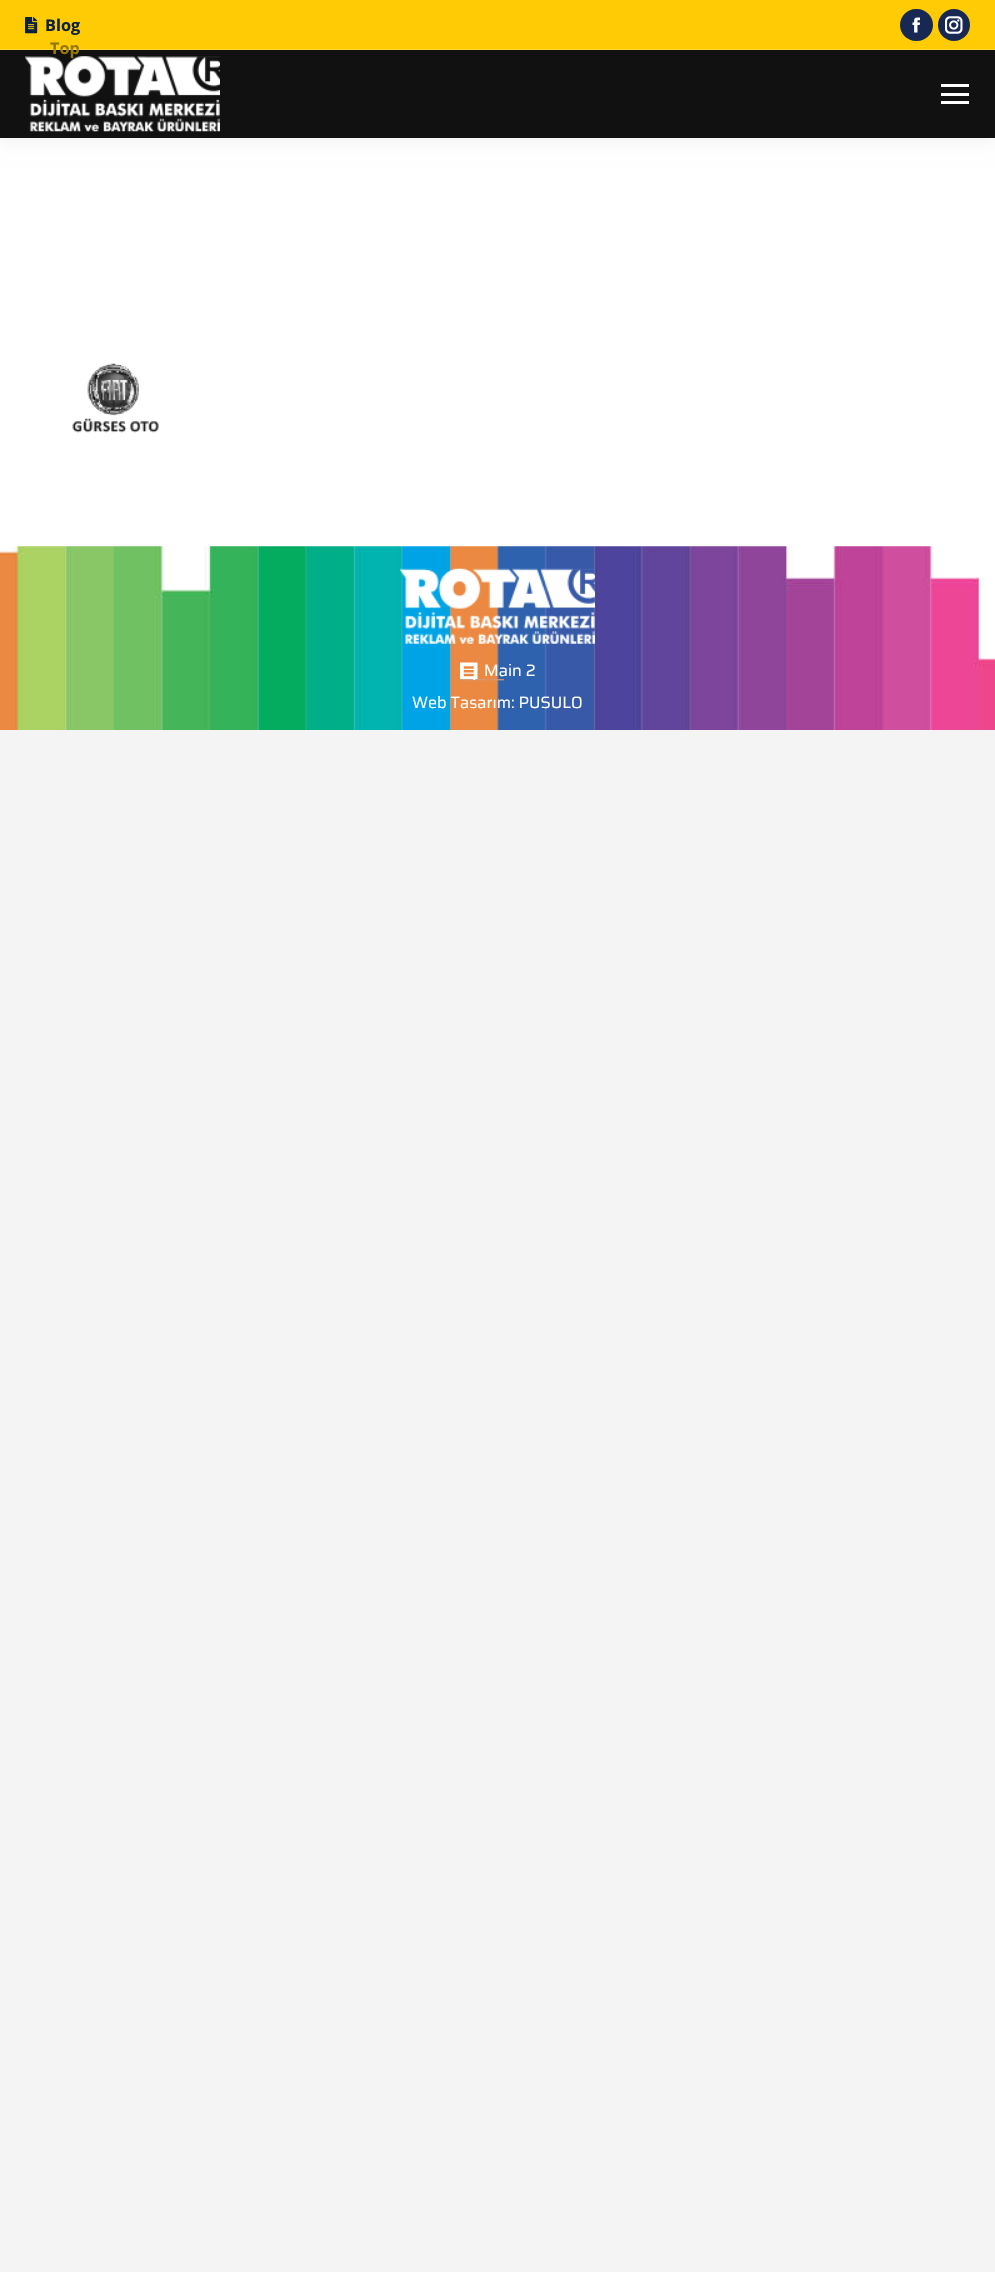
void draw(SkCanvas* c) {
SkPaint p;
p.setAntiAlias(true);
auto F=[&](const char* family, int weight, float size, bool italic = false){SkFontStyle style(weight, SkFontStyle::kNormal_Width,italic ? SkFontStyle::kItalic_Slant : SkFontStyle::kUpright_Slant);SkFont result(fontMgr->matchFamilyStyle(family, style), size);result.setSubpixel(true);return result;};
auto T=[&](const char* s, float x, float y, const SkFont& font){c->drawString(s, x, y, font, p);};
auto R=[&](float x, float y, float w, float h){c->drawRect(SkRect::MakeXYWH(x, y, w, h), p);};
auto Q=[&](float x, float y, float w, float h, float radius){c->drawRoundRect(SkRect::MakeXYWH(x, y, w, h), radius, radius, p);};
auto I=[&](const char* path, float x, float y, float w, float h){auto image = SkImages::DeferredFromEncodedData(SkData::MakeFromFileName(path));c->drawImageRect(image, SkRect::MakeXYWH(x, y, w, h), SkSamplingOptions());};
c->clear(0xfff4f4f4);
p.setColor(0xffffffff);
R(0,138,995,409);
p.setColor(0x12000000);
p.setMaskFilter(SkMaskFilter::MakeBlur(kNormal_SkBlurStyle, 9.5));
c->drawRect(SkRect::MakeXYWH(-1,-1,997,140),p);
p.setMaskFilter(nullptr);
p.setColor(0xff111111);
R(0,50,995,88);
p.setColor(0xffffcb05);
R(0,0,995,50);
I("1.png",25,17,13,17);
auto f1 = F("Open Sans",700,16.25);
p.setColor(0xff0a2240);
T("Blog",45,31,f1);
p.setColor(0xff95780a);
T("Top",50,54,f1);
p.setColor(0xff172953);
Q(900,9,33,32,16);
I("2.png",912,17,8,16);
c->drawCircle(954,25,16,p);
I("3.png",945,16,18,18);
p.setColor(0x33ffffff);
R(0,49,995,1);
I("4.png",25,56,195,76);
p.setColor(0xffffffff);
R(941,93,28,3);
R(941,84,28,3);
R(941,101,28,3);
I("5.png",72,363,87,70);
I("6.png",0,546,995,184);
I("7.png",400,568,195,76);
I("8.png",460,662,18,18);
auto f2 = F("Saira",400,16.25);
T("Main 2",484,676,f2);
auto f3 = F("Saira",400,17.5);
p.setColor(0xffd19a78);
T("———",459,685,f3);
p.setColor(0xffffffff);
T("Web Tasarım: PUSULO",412,708,f2);
}
